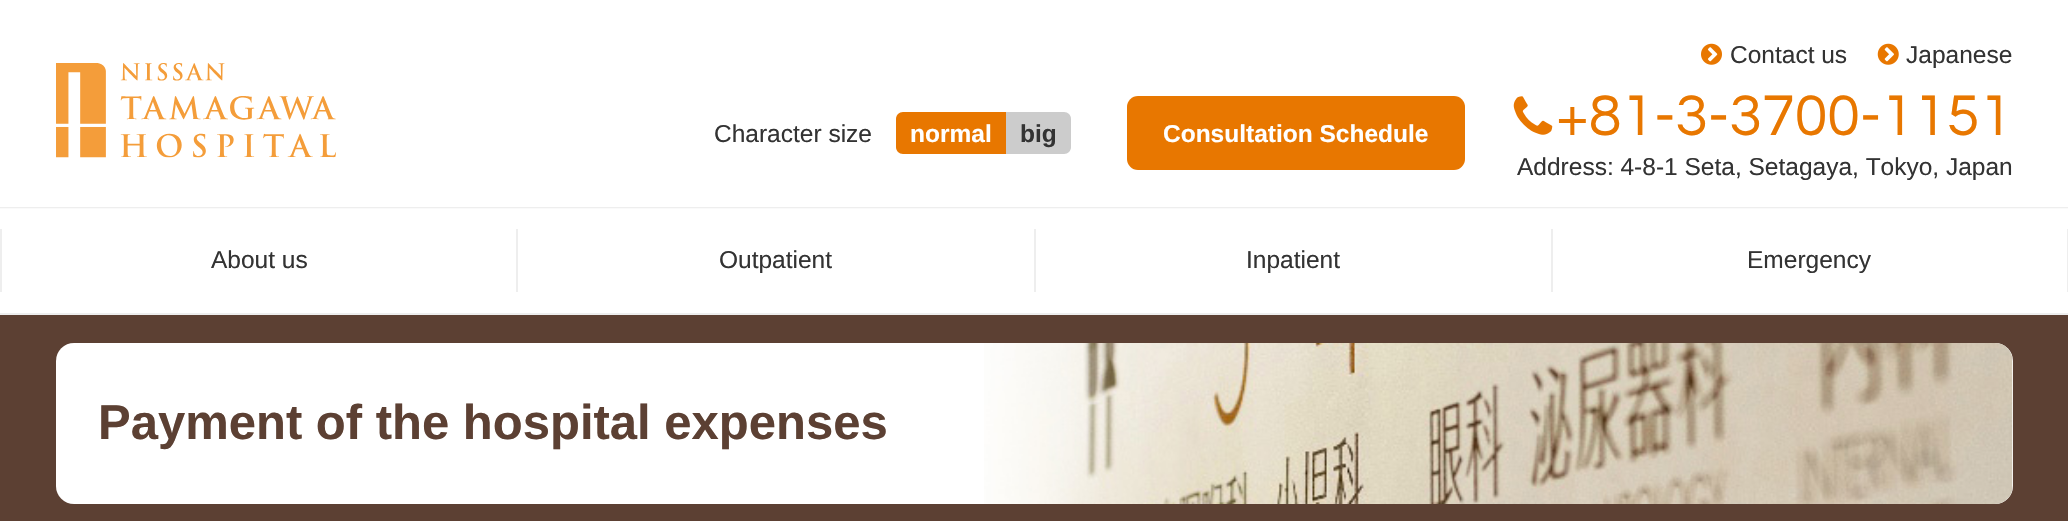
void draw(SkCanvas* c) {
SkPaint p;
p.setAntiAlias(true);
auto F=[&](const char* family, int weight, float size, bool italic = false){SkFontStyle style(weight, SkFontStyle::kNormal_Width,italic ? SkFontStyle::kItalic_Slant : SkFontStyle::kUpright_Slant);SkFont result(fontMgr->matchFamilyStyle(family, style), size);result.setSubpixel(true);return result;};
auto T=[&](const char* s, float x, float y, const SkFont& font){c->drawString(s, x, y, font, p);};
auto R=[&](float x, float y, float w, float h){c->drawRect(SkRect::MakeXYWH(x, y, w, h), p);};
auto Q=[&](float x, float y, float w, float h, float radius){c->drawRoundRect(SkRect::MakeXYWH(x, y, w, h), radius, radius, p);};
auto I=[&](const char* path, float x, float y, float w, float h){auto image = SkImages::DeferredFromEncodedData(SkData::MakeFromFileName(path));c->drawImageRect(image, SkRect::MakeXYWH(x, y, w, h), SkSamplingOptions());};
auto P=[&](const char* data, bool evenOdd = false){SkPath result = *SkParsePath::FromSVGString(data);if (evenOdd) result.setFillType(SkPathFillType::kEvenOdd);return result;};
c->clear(0xffffffff);
p.setColor(0xffeeeeee);
R(0,207,2068,1);
p.setColor(0xfffafafa);
R(0,208,2068,1);
I("1.png",56,63,280,95);
I("2.png",1701,43,21,22);
auto f1 = F("Liberation Sans",400,24.5);
p.setColor(0xff333333);
T("Contact us",1730,63,f1);
I("3.png",1877,43,22,22);
T("Japanese",1906,63,f1);
T("Character size",714,142,f1);
p.setColor(0xffe87700);
c->drawPath(P("M903 112h103v42h-103c-4 0-7-3-7-7v-28c0-4 3-7 7-7z"),p);
auto f2 = F("Liberation Sans",700,24.5);
p.setColor(0xffffffff);
T("normal",910,142,f2);
p.setColor(0xffcccccc);
c->drawPath(P("M1006 112h58c4 0 7 3 7 7v28c0 4-3 7-7 7h-58z"),p);
p.setColor(0xff333333);
T("big",1020,142,f2);
p.setColor(0xffe87700);
Q(1127,96,338,74,11);
p.setColor(0xffffffff);
T("Consultation Schedule",1163,142,f2);
I("4.png",1513,96,40,39);
auto f3 = F("Questrial",400,59.5);
p.setColor(0xffe87700);
T("+81-3-3700-1151",1556,135,f3);
p.setColor(0xff333333);
T("Address: 4-8-1 Seta, Setagaya, Tokyo, Japan",1517,175,f1);
p.setColor(0xffeeeeee);
R(0,313,2068,2);
R(0,229,2,63);
R(516,229,2,63);
p.setColor(0xff333333);
T("About us",211,268,f1);
p.setColor(0xffeeeeee);
R(1034,229,2,63);
p.setColor(0xff333333);
T("Outpatient",719,268,f1);
p.setColor(0xffeeeeee);
R(1551,229,2,63);
p.setColor(0xff333333);
T("Inpatient",1246,268,f1);
p.setColor(0xffeeeeee);
R(2067,229,1,63);
p.setColor(0xff333333);
T("Emergency",1747,268,f1);
p.setColor(0xff5c4033);
R(0,315,2068,206);
p.setColor(0xffffffff);
Q(56,343,1957,161,18);
I("5.png",984,343,1029,161);
auto f4 = F("Liberation Sans",700,49);
p.setColor(0xff5c4033);
T("Payment of the hospital expenses",98,439,f4);
}
